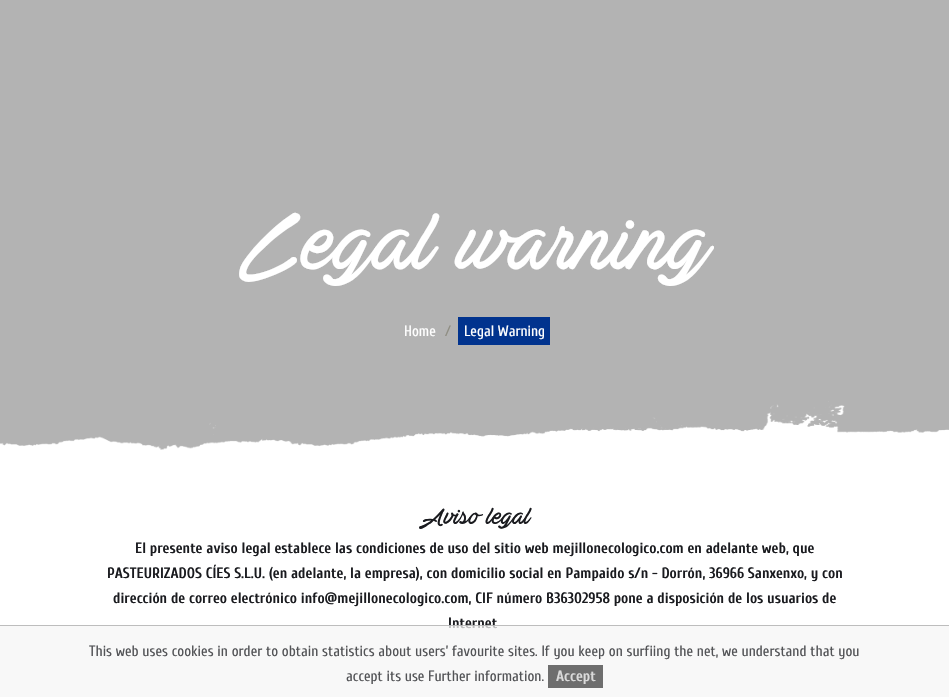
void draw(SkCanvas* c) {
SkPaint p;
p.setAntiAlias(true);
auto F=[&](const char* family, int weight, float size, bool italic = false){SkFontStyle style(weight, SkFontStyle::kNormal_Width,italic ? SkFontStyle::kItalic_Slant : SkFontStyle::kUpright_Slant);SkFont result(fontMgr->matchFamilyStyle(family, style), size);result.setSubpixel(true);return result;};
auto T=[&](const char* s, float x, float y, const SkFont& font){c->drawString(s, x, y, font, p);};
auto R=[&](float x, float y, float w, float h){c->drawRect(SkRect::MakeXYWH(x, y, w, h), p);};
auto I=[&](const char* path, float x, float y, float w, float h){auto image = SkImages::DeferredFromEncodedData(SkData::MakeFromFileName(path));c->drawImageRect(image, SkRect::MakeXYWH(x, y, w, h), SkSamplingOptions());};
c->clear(0xffffffff);
p.setColor(0xffb3b3b3);
R(0,0,949,450);
auto f1 = F("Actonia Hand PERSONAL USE",400,90);
p.setColor(0xffffffff);
T("Legal warning",239,266,f1);
auto f2 = F("Cuprum",400,15);
T("Home",404,336,f2);
p.setColor(0xff8f8e83);
T("/",445,336,f2);
p.setColor(0xff01338e);
R(458,317,92,28);
p.setColor(0xffffffff);
T("Legal Warning",464,336,f2);
I("1.png",0,401,949,49);
auto f3 = F("Actonia Hand PERSONAL USE",400,26);
p.setColor(0xff1a1b1f);
T("Aviso legal",419,523,f3);
auto f4 = F("Cuprum",700,15);
T("El presente aviso legal establece las condiciones de uso del sitio web mejillonecologico.com en adelante web, que",135,553,f4);
T("PASTEURIZADOS CÍES S.L.U. (en adelante, la empresa), con domicilio social en Pampaido s/n - Dorrón, 36966 Sanxenxo, y con",107,578,f4);
T("dirección de correo electrónico info@mejillonecologico.com, CIF número B36302958 pone a disposición de los usuarios de",113,603,f4);
T("Internet",448,628,f4);
p.setColor(0xbff6f6f6);
R(0,625,949,72);
p.setColor(0xbfaaaaaa);
R(0,625,949,1);
p.setColor(0xff535457);
T("This web uses cookies in order to obtain statistics about users’ favourite sites. If you keep on surfiing the net, we understand that you",89,656,f2);
T("accept its use",346,681,f2);
T("Further information.",428,681,f2);
p.setColor(0xbf404040);
R(548,665,55,23);
p.setColor(0xffdadada);
T("Accept",556,681,f4);
}
